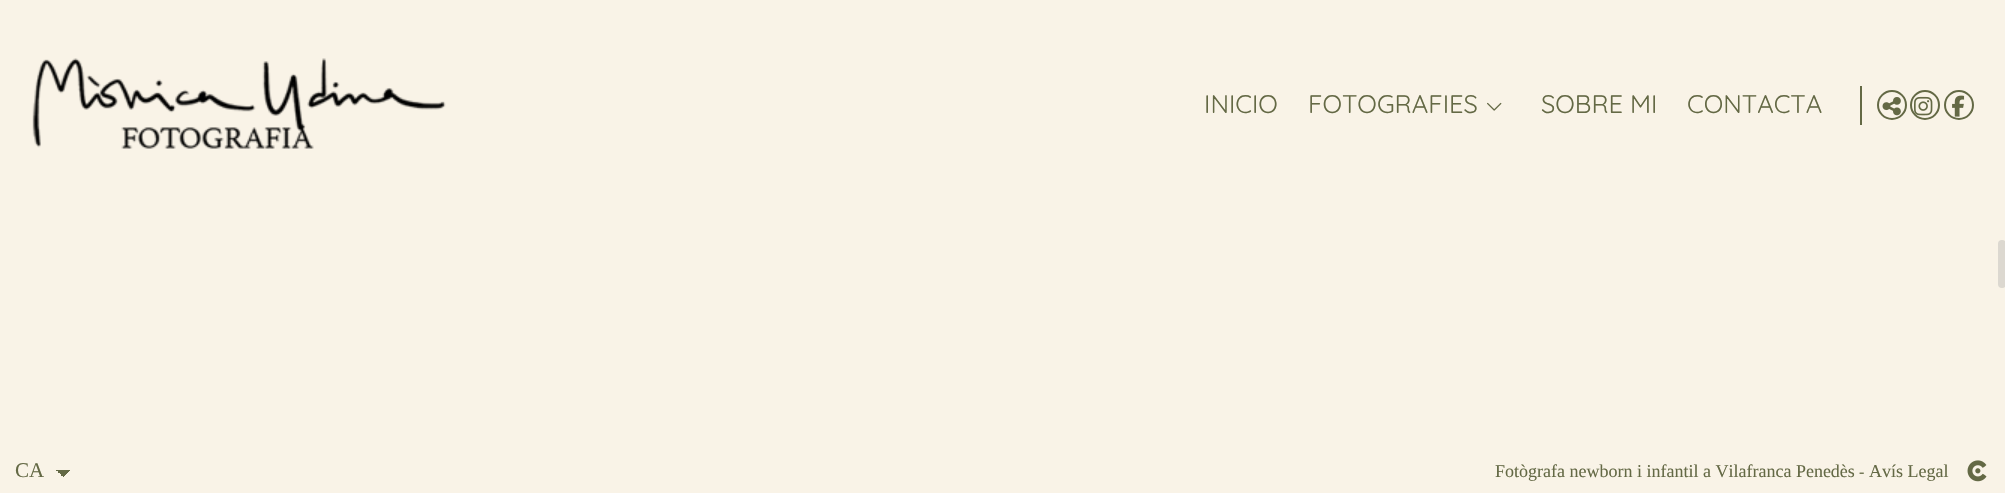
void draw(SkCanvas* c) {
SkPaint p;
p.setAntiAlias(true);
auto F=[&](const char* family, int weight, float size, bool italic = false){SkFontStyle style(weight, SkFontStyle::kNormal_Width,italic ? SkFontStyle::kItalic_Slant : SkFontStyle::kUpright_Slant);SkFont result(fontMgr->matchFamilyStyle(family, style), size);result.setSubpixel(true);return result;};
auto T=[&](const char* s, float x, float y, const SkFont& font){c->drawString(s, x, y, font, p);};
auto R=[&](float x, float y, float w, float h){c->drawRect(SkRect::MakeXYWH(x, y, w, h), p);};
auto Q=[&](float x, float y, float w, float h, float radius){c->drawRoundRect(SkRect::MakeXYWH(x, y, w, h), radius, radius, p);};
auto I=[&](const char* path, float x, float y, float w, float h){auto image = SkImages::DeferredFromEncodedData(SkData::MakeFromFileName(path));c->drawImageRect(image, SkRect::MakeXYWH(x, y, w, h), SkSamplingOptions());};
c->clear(0xfff9f3e7);
I("1.png",32,58,414,91);
auto f1 = F("Quicksand",300,25.5);
p.setColor(0xff646945);
T("INICIO",1204,113,f1);
T("FOTOGRAFIES",1308,113,f1);
I("2.png",1487,102,15,9);
T("SOBRE MI",1541,113,f1);
T("CONTACTA",1687,113,f1);
R(1860,86,2,39);
p.setStroke(true);
p.setStrokeWidth(2);
c->drawCircle(1892,105,14,p);
I("3.png",1882,97,19,19);
c->drawCircle(1925,105,14,p);
I("4.png",1914,96,19,20);
c->drawCircle(1959,105,14,p);
I("5.png",1952,95,13,22);
p.setStroke(false);
{
const SkColor colors[] = {0xff646945,0xfff9f3e7};
const float stops[] = {.5,.5};
const SkPoint ends[] = {{63,470}, {71,477}};
p.setShader(SkGradientShader::MakeLinear(ends, colors, stops, 2, SkTileMode::kClamp));
p.setAlpha(255);
}
R(63,470,8,7);
{
const SkColor colors[] = {0xfff9f3e7,0xff646945};
const float stops[] = {.5,.5};
const SkPoint ends[] = {{56,477}, {63,470}};
p.setShader(SkGradientShader::MakeLinear(ends, colors, stops, 2, SkTileMode::kClamp));
p.setAlpha(255);
}
R(56,470,7,6);
auto f2 = F("Liberation Serif",400,21);
p.setShader(nullptr);
p.setColor(0xff646945);
T("CA",15,477,f2);
auto f3 = F("Liberation Serif",400,18);
T("Fotògrafa newborn i infantil a Vilafranca Penedès",1495,477,f3);
auto f4 = F("Liberation Serif",400,16);
T("-",1859,477,f4);
T("Avís Legal",1869,477,f3);
I("6.png",1967,460,20,22);
p.setColor(0xffdcd8d0);
Q(1998,240,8,48,4);
}
